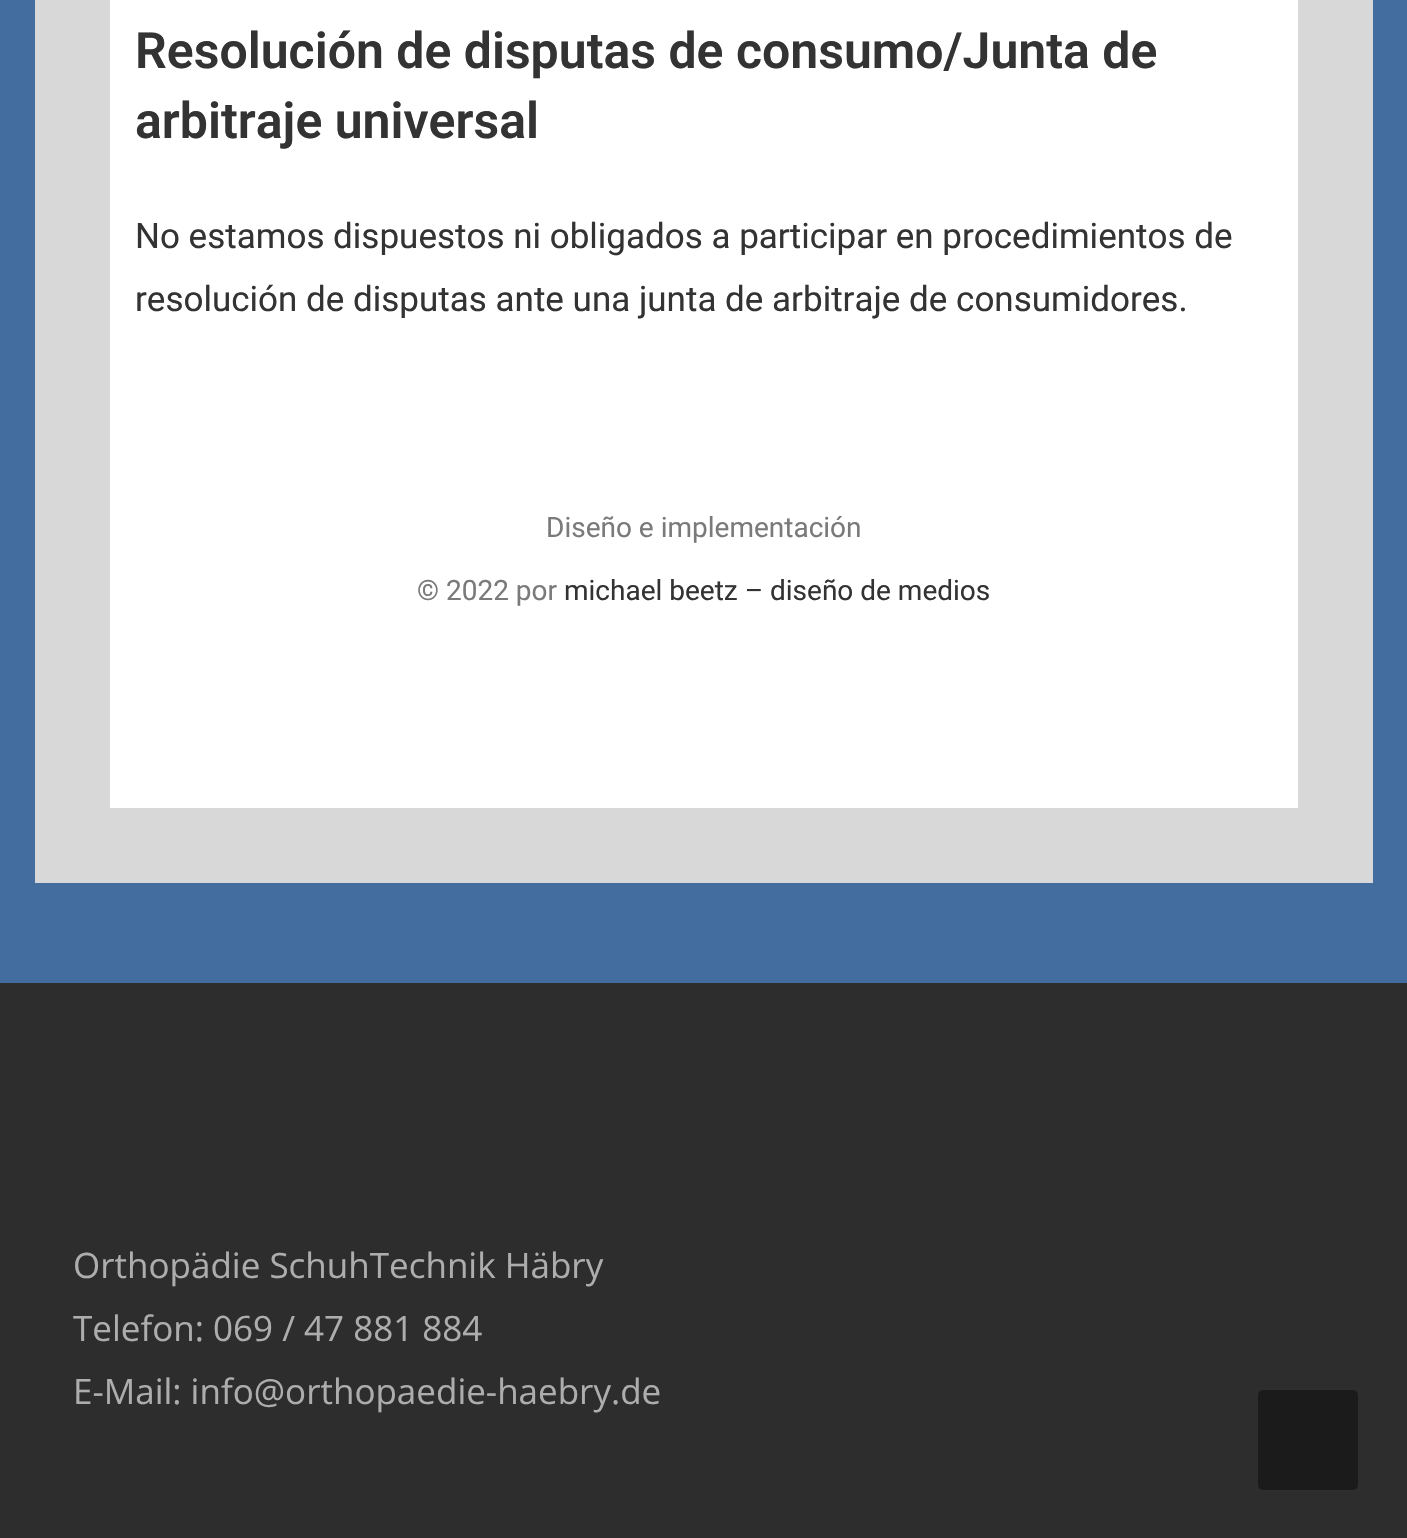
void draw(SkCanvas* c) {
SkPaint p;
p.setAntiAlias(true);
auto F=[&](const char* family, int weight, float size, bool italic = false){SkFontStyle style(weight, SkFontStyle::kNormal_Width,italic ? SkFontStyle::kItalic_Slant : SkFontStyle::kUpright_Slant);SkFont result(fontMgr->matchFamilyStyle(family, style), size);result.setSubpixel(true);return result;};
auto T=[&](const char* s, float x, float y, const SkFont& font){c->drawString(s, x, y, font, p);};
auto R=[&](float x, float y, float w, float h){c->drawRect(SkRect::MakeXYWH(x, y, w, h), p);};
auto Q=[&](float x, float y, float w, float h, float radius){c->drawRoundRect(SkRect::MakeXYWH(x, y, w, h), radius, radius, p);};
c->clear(0xff436d9f);
p.setColor(0xffd8d8d8);
R(35,0,1338,883);
p.setColor(0xffffffff);
R(110,0,1188,808);
auto f1 = F("Roboto",600,50);
p.setColor(0xff333333);
T("Resolución de disputas de consumo/Junta de",135,68,f1);
T("arbitraje universal",135,138,f1);
auto f2 = F("Roboto",400,35);
T("No estamos dispuestos ni obligados a participar en procedimientos de",135,248,f2);
T("resolución de disputas ante una junta de arbitraje de consumidores.",135,311,f2);
auto f3 = F("Roboto",400,28);
p.setColor(0xff7a7a7a);
T("Diseño e implementación",546,537,f3);
T("© 2022 por",417,600,f3);
p.setColor(0xff333333);
T("michael beetz – diseño de medios",564,600,f3);
p.setColor(0xff2d2d2d);
R(0,983,1407,555);
auto f4 = F("Open Sans",400,35);
p.setColor(0xffadadad);
T("Orthopädie SchuhTechnik Häbry",73,1278,f4);
T("Telefon: 069 / 47 881 884",73,1341,f4);
T("E-Mail: info@orthopaedie-haebry.de",73,1404,f4);
p.setColor(0xff1b1b1b);
Q(1258,1390,100,100,5);
}
